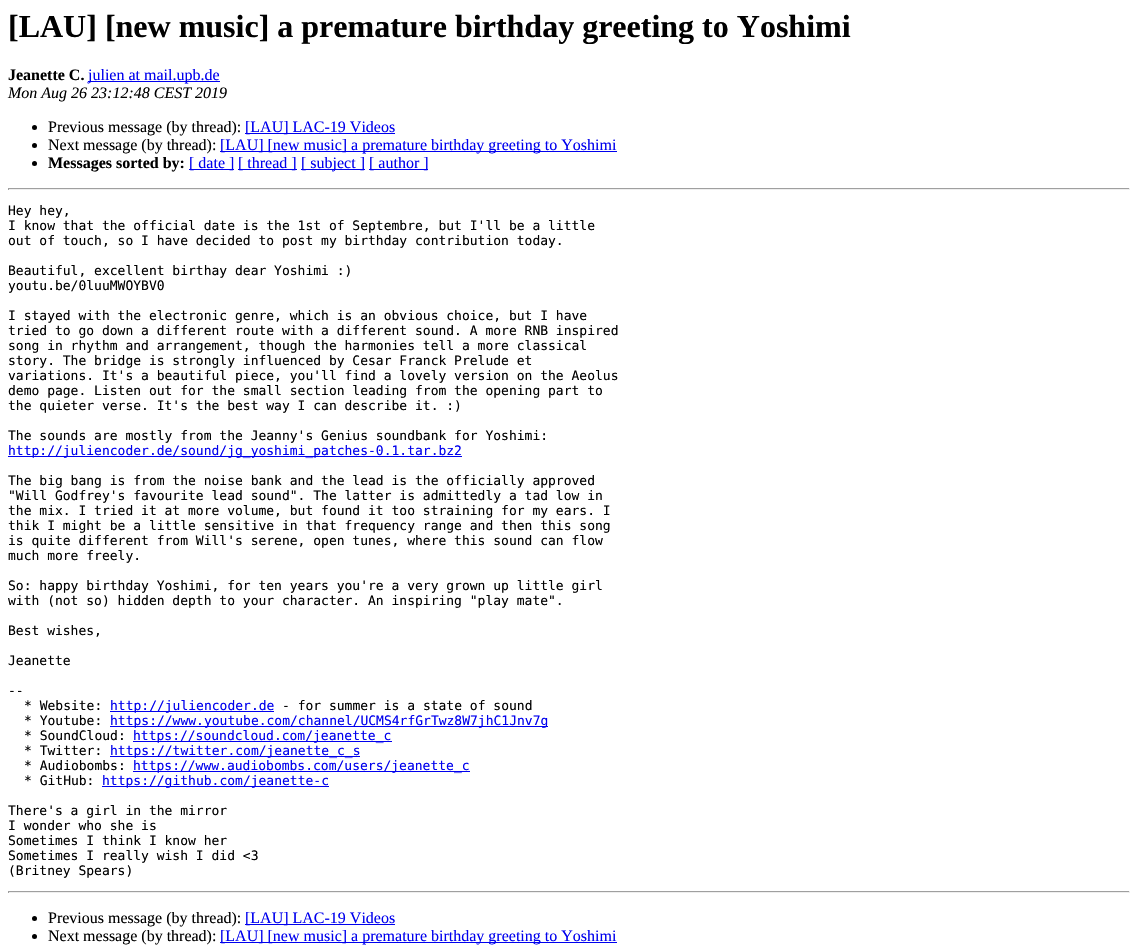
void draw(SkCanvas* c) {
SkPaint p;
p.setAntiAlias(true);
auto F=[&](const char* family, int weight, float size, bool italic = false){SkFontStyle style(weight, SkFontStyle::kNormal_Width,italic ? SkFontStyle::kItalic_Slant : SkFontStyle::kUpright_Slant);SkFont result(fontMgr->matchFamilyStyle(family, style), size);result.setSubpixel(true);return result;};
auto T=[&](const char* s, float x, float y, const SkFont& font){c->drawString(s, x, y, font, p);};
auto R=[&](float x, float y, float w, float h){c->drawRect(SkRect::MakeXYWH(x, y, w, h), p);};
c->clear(0xffffffff);
auto f1 = F("Liberation Serif",700,32);
p.setColor(0xff000000);
T("[LAU] [new music] a premature birthday greeting to Yoshimi",8,37,f1);
auto f2 = F("Liberation Serif",700,16);
T("Jeanette C.",8,80,f2);
p.setColor(0xff0000ee);
R(88,81,132,1);
auto f3 = F("Liberation Serif",400,16);
T("julien at mail.upb.de",88,80,f3);
auto f4 = F("Liberation Serif",400,16,true);
p.setColor(0xff000000);
T("Mon Aug 26 23:12:48 CEST 2019",8,98,f4);
c->drawCircle(34.5,127.5,2.5,p);
T("Previous message (by thread):",48,132,f3);
p.setColor(0xff0000ee);
R(245,133,150,1);
T("[LAU] LAC-19 Videos",245,132,f3);
p.setColor(0xff000000);
c->drawCircle(34.5,145.5,2.5,p);
T("Next message (by thread):",48,150,f3);
p.setColor(0xff0000ee);
R(220,151,397,1);
T("[LAU] [new music] a premature birthday greeting to Yoshimi",220,150,f3);
p.setColor(0xff000000);
c->drawCircle(34.5,163.5,2.5,p);
T("Messages sorted by:",48,168,f2);
p.setColor(0xff0000ee);
R(189,169,45,1);
T("[ date ]",189,168,f3);
R(238,169,59,1);
T("[ thread ]",238,168,f3);
R(301,169,64,1);
T("[ subject ]",301,168,f3);
R(369,169,59,1);
T("[ author ]",369,168,f3);
p.setColor(0xff9f9f9f);
R(8,188,1122,1);
p.setColor(0xffeeeeee);
R(1129,188,1,2);
R(8,189,1122,1);
p.setColor(0xff9f9f9f);
R(8,188,1,2);
auto f5 = F("DejaVu Sans Mono",400,13);
p.setColor(0xff000000);
T("Hey hey,",8,215,f5);
T("I know that the official date is the 1st of Septembre, but I'll be a little",8,230,f5);
T("out of touch, so I have decided to post my birthday contribution today.",8,245,f5);
T("Beautiful, excellent birthay dear Yoshimi :)",8,275,f5);
T("youtu.be/0luuMWOYBV0",8,290,f5);
T("I stayed with the electronic genre, which is an obvious choice, but I have",8,320,f5);
T("tried to go down a different route with a different sound. A more RNB inspired",8,335,f5);
T("song in rhythm and arrangement, though the harmonies tell a more classical",8,350,f5);
T("story. The bridge is strongly influenced by Cesar Franck Prelude et",8,365,f5);
T("variations. It's a beautiful piece, you'll find a lovely version on the Aeolus",8,380,f5);
T("demo page. Listen out for the small section leading from the opening part to",8,395,f5);
T("the quieter verse. It's the best way I can describe it. :)",8,410,f5);
T("The sounds are mostly from the Jeanny's Genius soundbank for Yoshimi:",8,440,f5);
p.setColor(0xff0000ee);
R(8,456,454,1);
T("http://juliencoder.de/sound/jg_yoshimi_patches-0.1.tar.bz2",8,455,f5);
p.setColor(0xff000000);
T("The big bang is from the noise bank and the lead is the officially approved",8,485,f5);
T("\"Will Godfrey's favourite lead sound\". The latter is admittedly a tad low in",8,500,f5);
T("the mix. I tried it at more volume, but found it too straining for my ears. I",8,515,f5);
T("thik I might be a little sensitive in that frequency range and then this song",8,530,f5);
T("is quite different from Will's serene, open tunes, where this sound can flow",8,545,f5);
T("much more freely.",8,560,f5);
T("So: happy birthday Yoshimi, for ten years you're a very grown up little girl",8,590,f5);
T("with (not so) hidden depth to your character. An inspiring \"play mate\".",8,605,f5);
T("Best wishes,",8,635,f5);
T("Jeanette",8,665,f5);
T("--",8,695,f5);
T("* Website:",24,710,f5);
p.setColor(0xff0000ee);
R(110,711,164,1);
T("http://juliencoder.de",110,710,f5);
p.setColor(0xff000000);
T("- for summer is a state of sound",282,710,f5);
T("* Youtube:",24,725,f5);
p.setColor(0xff0000ee);
R(110,726,438,1);
T("https://www.youtube.com/channel/UCMS4rfGrTwz8W7jhC1Jnv7g",110,725,f5);
p.setColor(0xff000000);
T("* SoundCloud:",24,740,f5);
p.setColor(0xff0000ee);
R(133,741,259,1);
T("https://soundcloud.com/jeanette_c",133,740,f5);
p.setColor(0xff000000);
T("* Twitter:",24,755,f5);
p.setColor(0xff0000ee);
R(110,756,250,1);
T("https://twitter.com/jeanette_c_s",110,755,f5);
p.setColor(0xff000000);
T("* Audiobombs:",24,770,f5);
p.setColor(0xff0000ee);
R(133,771,337,1);
T("https://www.audiobombs.com/users/jeanette_c",133,770,f5);
p.setColor(0xff000000);
T("* GitHub:",24,785,f5);
p.setColor(0xff0000ee);
R(102,786,227,1);
T("https://github.com/jeanette-c",102,785,f5);
p.setColor(0xff000000);
T("There's a girl in the mirror",8,815,f5);
T("I wonder who she is",8,830,f5);
T("Sometimes I think I know her",8,845,f5);
T("Sometimes I really wish I did <3",8,860,f5);
T("(Britney Spears)",8,875,f5);
p.setColor(0xff9f9f9f);
R(8,891,1122,1);
p.setColor(0xffeeeeee);
R(1129,891,1,2);
R(8,892,1122,1);
p.setColor(0xff9f9f9f);
R(8,891,1,2);
p.setColor(0xff000000);
c->drawCircle(34.5,918.5,2.5,p);
T("Previous message (by thread):",48,923,f3);
p.setColor(0xff0000ee);
R(245,924,150,1);
T("[LAU] LAC-19 Videos",245,923,f3);
p.setColor(0xff000000);
c->drawCircle(34.5,936.5,2.5,p);
T("Next message (by thread):",48,941,f3);
p.setColor(0xff0000ee);
R(220,942,397,1);
T("[LAU] [new music] a premature birthday greeting to Yoshimi",220,941,f3);
}
